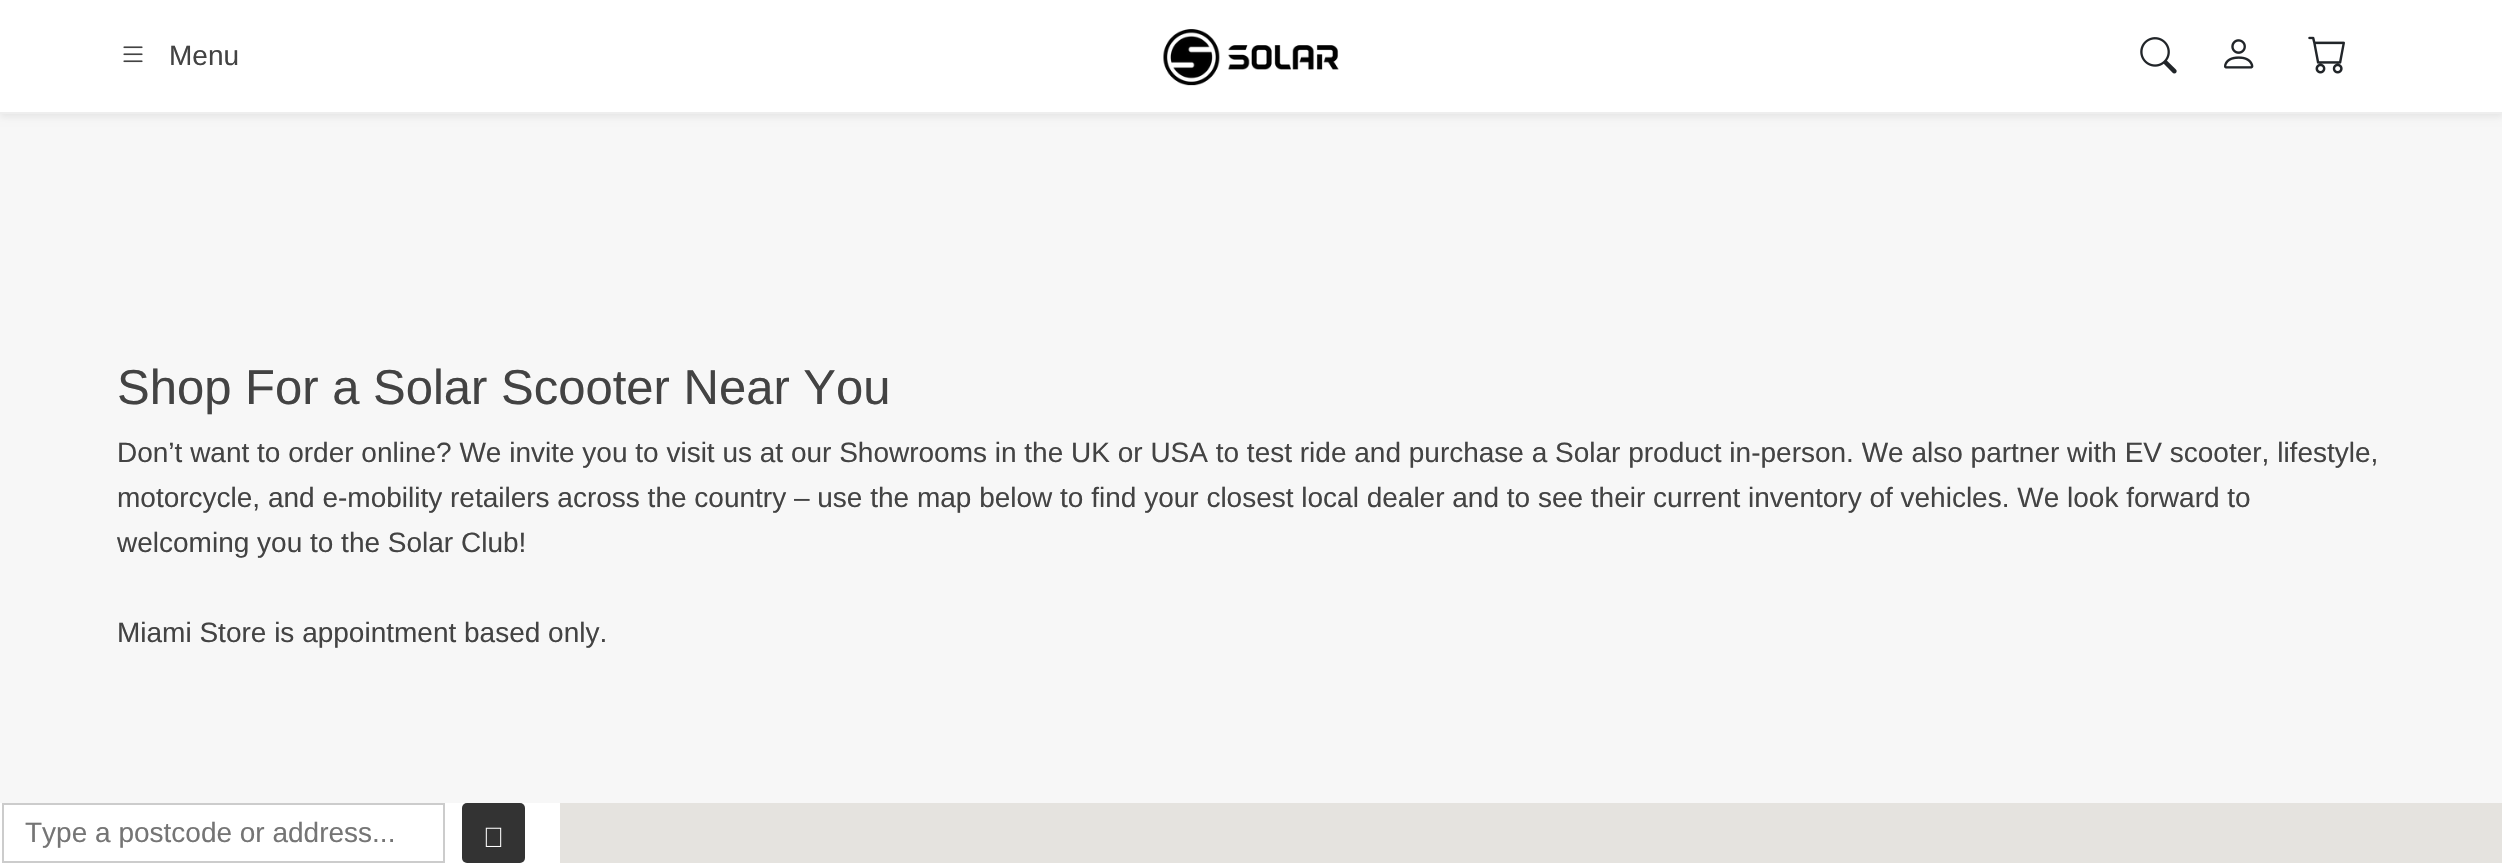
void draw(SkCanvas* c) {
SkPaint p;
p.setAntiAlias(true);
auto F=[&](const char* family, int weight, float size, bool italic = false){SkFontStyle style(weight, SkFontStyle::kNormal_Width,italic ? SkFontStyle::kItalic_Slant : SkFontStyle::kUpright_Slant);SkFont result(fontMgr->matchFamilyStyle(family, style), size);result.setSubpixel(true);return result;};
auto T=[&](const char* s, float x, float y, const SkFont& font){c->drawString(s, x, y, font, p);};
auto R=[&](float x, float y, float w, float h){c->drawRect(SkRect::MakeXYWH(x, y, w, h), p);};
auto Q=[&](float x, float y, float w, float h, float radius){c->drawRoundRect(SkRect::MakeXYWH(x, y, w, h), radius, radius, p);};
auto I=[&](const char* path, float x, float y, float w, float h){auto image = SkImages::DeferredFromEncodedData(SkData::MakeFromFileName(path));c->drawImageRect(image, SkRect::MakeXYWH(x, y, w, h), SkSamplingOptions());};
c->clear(0xffffffff);
p.setColor(0xfff7f7f7);
R(0,114,2502,689);
p.setColor(0x12000000);
p.setMaskFilter(SkMaskFilter::MakeBlur(kNormal_SkBlurStyle, 3.5));
c->drawRect(SkRect::MakeXYWH(0,4,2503,113),p);
p.setMaskFilter(nullptr);
p.setColor(0xffffffff);
R(0,0,2502,112);
p.setColor(0xffeeeeee);
R(0,112,2502,2);
I("1.png",123,46,20,17);
auto f1 = F("Liberation Sans",400,28);
p.setColor(0xff434343);
T("Menu",169,65,f1);
I("2.png",1163,29,176,57);
I("3.png",2140,37,37,37);
I("4.png",2224,39,30,30);
I("5.png",2308,36,37,38);
auto f2 = F("Liberation Sans",400,49);
T("Shop For a Solar Scooter Near You",117,404,f2);
T("Don’t want to order online? We invite you to visit us at our Showrooms in the UK or USA to test ride and purchase a Solar product in-person. We also partner with EV scooter, lifestyle,",117,462,f1);
T("motorcycle, and e-mobility retailers across the country – use the map below to find your closest local dealer and to see their current inventory of vehicles. We look forward to",117,507,f1);
T("welcoming you to the Solar Club!",117,552,f1);
T("Miami Store is appointment based only.",117,642,f1);
p.setStroke(true);
p.setStrokeWidth(2);
p.setColor(0xffcccccc);
c->drawRect(SkRect::MakeXYWH(3,804,441,58),p);
p.setStroke(false);
p.setColor(0xff757575);
T("Type a postcode or address...",25,842,f1);
p.setColor(0xff333333);
Q(462,803,63,60,5);
I("6.png",485,827,17,20);
p.setColor(0xffe5e3df);
R(560,803,1942,60);
}
